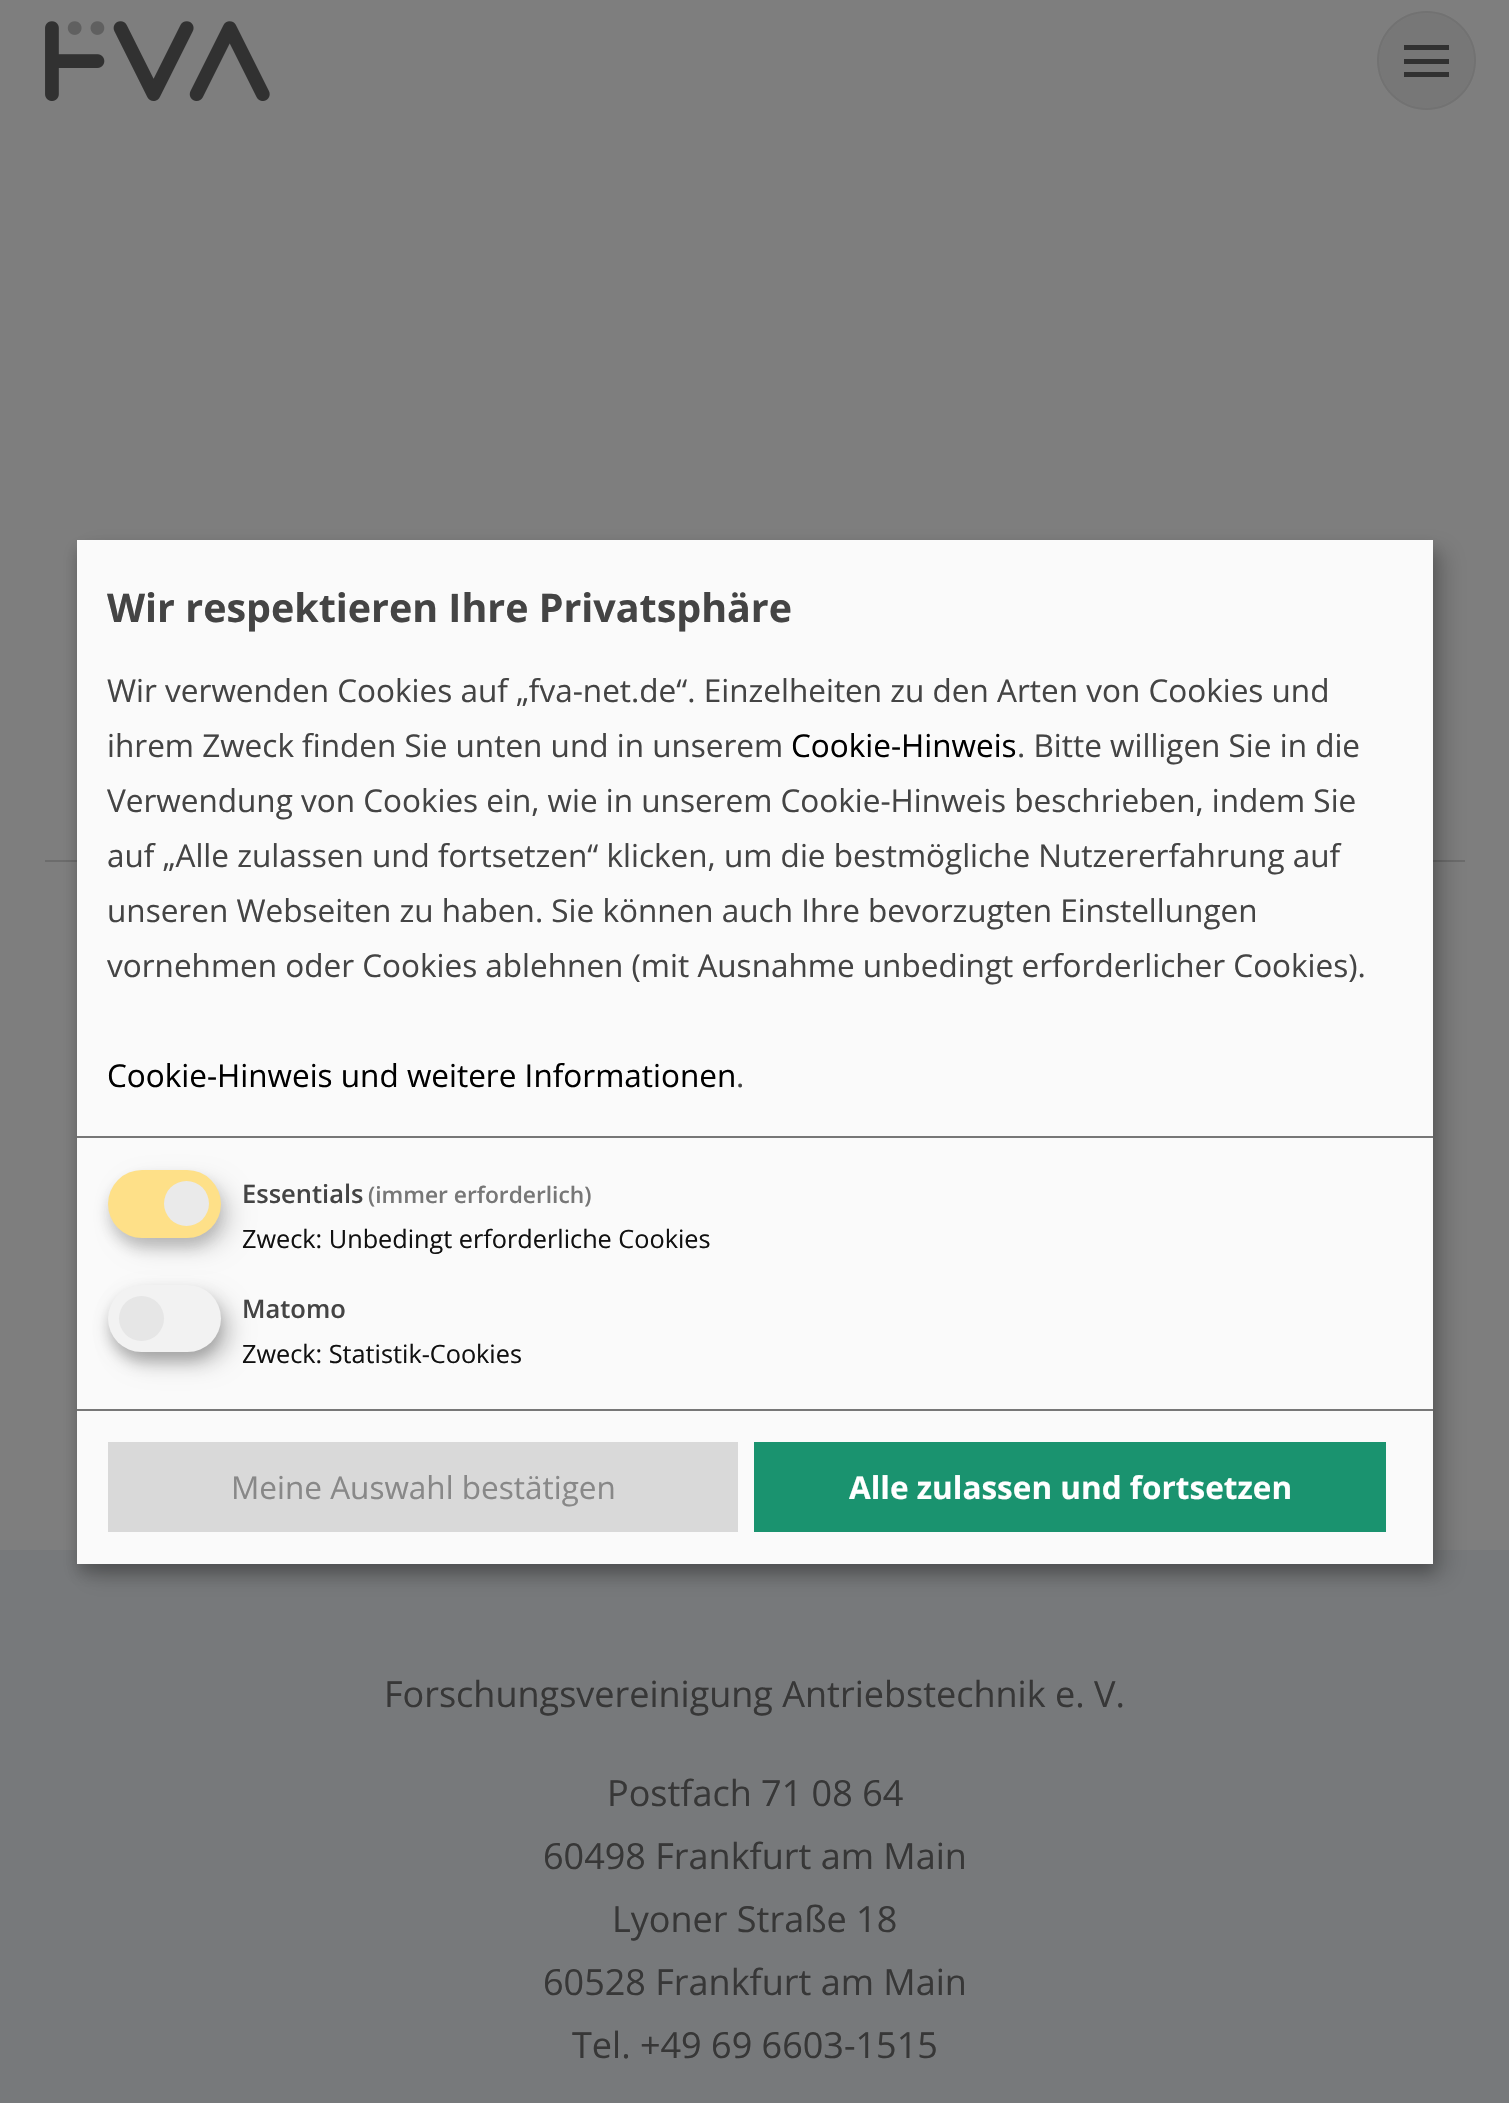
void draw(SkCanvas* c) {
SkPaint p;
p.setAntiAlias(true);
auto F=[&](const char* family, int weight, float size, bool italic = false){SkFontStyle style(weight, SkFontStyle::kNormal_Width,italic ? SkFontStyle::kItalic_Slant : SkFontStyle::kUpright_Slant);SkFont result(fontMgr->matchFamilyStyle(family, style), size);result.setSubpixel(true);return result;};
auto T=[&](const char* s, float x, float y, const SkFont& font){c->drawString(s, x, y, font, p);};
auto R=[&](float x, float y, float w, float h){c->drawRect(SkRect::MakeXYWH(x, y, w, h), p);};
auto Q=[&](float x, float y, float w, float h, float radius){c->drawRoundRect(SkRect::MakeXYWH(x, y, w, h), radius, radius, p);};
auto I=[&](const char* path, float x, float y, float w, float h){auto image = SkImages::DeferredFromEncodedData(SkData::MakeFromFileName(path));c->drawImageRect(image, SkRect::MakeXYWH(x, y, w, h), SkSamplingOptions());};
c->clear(0xff7e7e7e);
I("1.png",45,21,225,80);
p.setColor(0xff777777);
c->drawCircle(1426.5,60.5,49.5,p);
p.setStroke(true);
p.setStrokeWidth(2);
p.setColor(0x12313131);
c->drawCircle(1426.5,60.5,48.5,p);
p.setStroke(false);
p.setColor(0xff313131);
R(1404,45,45,5);
R(1404,72,45,5);
R(1404,59,45,5);
p.setColor(0xff6c6c6c);
R(45,860,1420,2);
p.setColor(0xff77797b);
R(0,1550,1509,553);
p.setColor(0x30000000);
p.setMaskFilter(SkMaskFilter::MakeBlur(kNormal_SkBlurStyle, 11));
c->drawRect(SkRect::MakeXYWH(88,551,1357,1024),p);
p.setMaskFilter(nullptr);
p.setColor(0x33000000);
p.setMaskFilter(SkMaskFilter::MakeBlur(kNormal_SkBlurStyle, 7));
c->drawRect(SkRect::MakeXYWH(77,549,1356,1024),p);
p.setMaskFilter(nullptr);
p.setColor(0xfffafafa);
R(77,540,1356,1024);
p.setColor(0xff777777);
R(77,1136,1356,2);
auto f1 = F("Open Sans",700,39.4);
p.setColor(0xff444444);
T("Wir respektieren Ihre Privatsphäre",107,622,f1);
auto f2 = F("Open Sans",400,31.5);
T("Wir verwenden Cookies auf „fva-net.de“. Einzelheiten zu den Arten von Cookies und",107,702,f2);
T("ihrem Zweck finden Sie unten und in unserem",107,757,f2);
p.setColor(0xff000000);
T("Cookie-Hinweis",791,757,f2);
p.setColor(0xff444444);
T(". Bitte willigen Sie in die",1017,757,f2);
T("Verwendung von Cookies ein, wie in unserem Cookie-Hinweis beschrieben, indem Sie",107,812,f2);
T("auf „Alle zulassen und fortsetzen“ klicken, um die bestmögliche Nutzererfahrung auf",107,867,f2);
T("unseren Webseiten zu haben. Sie können auch Ihre bevorzugten Einstellungen",107,922,f2);
T("vornehmen oder Cookies ablehnen (mit Ausnahme unbedingt erforderlicher Cookies).",107,977,f2);
p.setColor(0xff000000);
T("Cookie-Hinweis und weitere Informationen",107,1087,f2);
p.setColor(0xff444444);
T(".",736,1087,f2);
p.setColor(0x26000000);
p.setMaskFilter(SkMaskFilter::MakeBlur(kNormal_SkBlurStyle, 11));
c->drawRoundRect(SkRect::MakeXYWH(119,1181,113,68),34,34,p);
p.setMaskFilter(nullptr);
p.setColor(0x33323232);
p.setMaskFilter(SkMaskFilter::MakeBlur(kNormal_SkBlurStyle, 7));
c->drawRoundRect(SkRect::MakeXYWH(108,1179,113,68),34,34,p);
p.setMaskFilter(nullptr);
p.setColor(0xfffee088);
Q(108,1170,113,68,34);
p.setColor(0xffeaeaea);
c->drawCircle(186.5,1203.5,22.5,p);
auto f3 = F("Open Sans",600,25.5);
p.setColor(0xff444444);
T("Essentials",242,1203,f3);
auto f4 = F("Open Sans",600,22.75);
p.setColor(0xff777777);
T("(immer erforderlich)",368,1203,f4);
auto f5 = F("Open Sans",400,25.25);
p.setColor(0xff111111);
T("Zweck: Unbedingt erforderliche Cookies",242,1248,f5);
p.setColor(0x30000000);
p.setMaskFilter(SkMaskFilter::MakeBlur(kNormal_SkBlurStyle, 11));
c->drawRoundRect(SkRect::MakeXYWH(119,1296,113,68),34,34,p);
p.setMaskFilter(nullptr);
p.setColor(0x33000000);
p.setMaskFilter(SkMaskFilter::MakeBlur(kNormal_SkBlurStyle, 7));
c->drawRoundRect(SkRect::MakeXYWH(108,1294,113,67),33.5,33.5,p);
p.setMaskFilter(nullptr);
p.setColor(0xfff2f2f2);
Q(108,1285,113,67,33.5);
p.setColor(0xffe6e6e6);
c->drawCircle(141.5,1318.5,22.5,p);
p.setColor(0xff444444);
T("Matomo",242,1318,f3);
p.setColor(0xff111111);
T("Zweck: Statistik-Cookies",242,1363,f5);
p.setColor(0xff777777);
R(77,1409,1356,2);
p.setColor(0xffd9d9d9);
R(108,1442,630,90);
p.setColor(0xff888888);
T("Meine Auswahl bestätigen",231,1499,f2);
p.setColor(0xff1a936f);
R(754,1442,632,90);
auto f6 = F("Open Sans",700,31.5);
p.setColor(0xffffffff);
T("Alle zulassen und fortsetzen",849,1499,f6);
auto f7 = F("Open Sans",400,36);
p.setColor(0xff373737);
T("Forschungsvereinigung Antriebstechnik e. V.",384,1707,f7);
T("Postfach 71 08 64",607,1806,f7);
T("60498 Frankfurt am Main",543,1869,f7);
T("Lyoner Straße 18",612,1932,f7);
T("60528 Frankfurt am Main",543,1995,f7);
T("Tel. +49 69 6603-1515",572,2058,f7);
}
